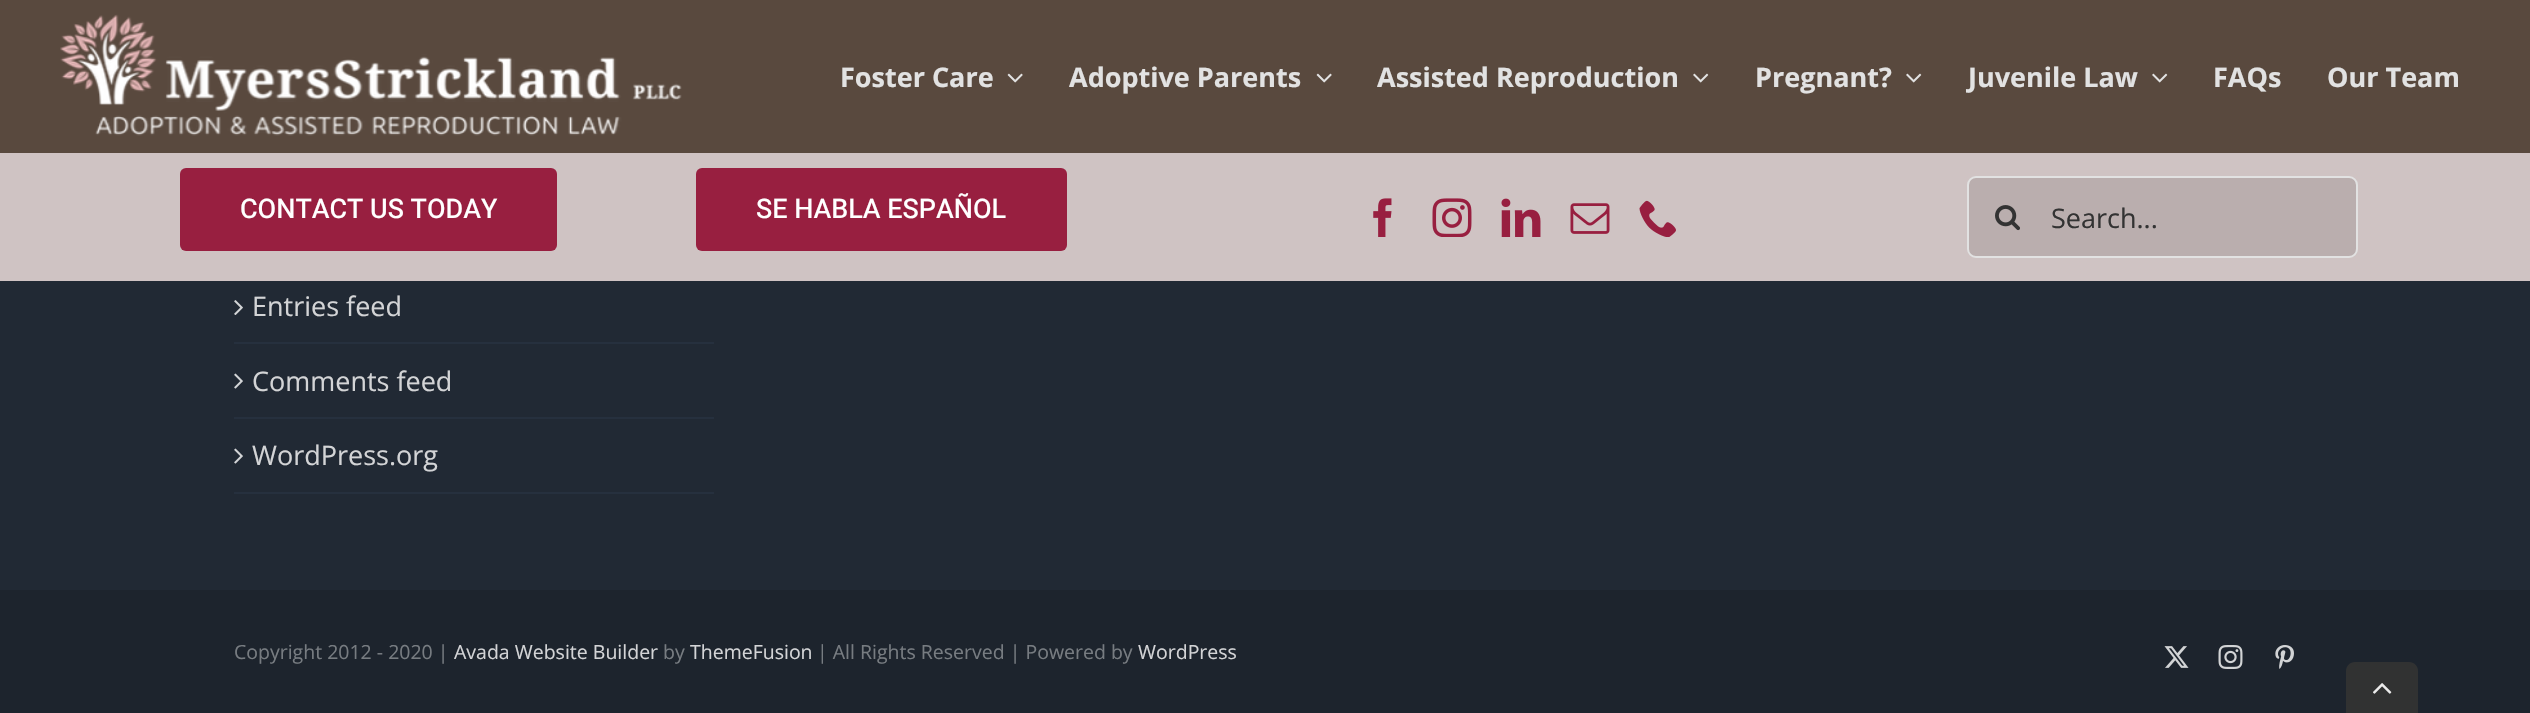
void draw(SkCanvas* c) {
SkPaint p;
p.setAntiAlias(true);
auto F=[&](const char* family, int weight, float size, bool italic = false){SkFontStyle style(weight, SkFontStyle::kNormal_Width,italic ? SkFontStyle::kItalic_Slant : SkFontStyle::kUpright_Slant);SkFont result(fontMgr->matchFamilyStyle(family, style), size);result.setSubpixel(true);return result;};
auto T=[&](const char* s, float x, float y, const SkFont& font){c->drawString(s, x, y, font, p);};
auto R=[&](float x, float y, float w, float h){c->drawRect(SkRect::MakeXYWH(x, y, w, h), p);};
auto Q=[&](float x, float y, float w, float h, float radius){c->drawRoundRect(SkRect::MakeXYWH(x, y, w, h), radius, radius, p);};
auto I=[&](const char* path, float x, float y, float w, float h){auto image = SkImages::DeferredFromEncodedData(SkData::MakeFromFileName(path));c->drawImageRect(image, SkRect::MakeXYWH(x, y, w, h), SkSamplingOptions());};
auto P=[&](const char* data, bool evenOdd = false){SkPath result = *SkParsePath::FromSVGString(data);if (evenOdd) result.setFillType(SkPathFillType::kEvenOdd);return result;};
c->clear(0xff212934);
p.setColor(0xff59493e);
R(0,0,2530,153);
I("1.png",60,14,622,122);
auto f1 = F("Open Sans",700,27);
p.setColor(0xffe2e2e2);
T("Foster Care",840,87,f1);
I("2.png",1007,73,16,10);
T("Adoptive Parents",1069,87,f1);
I("2.png",1316,73,16,10);
T("Assisted Reproduction",1377,87,f1);
I("3.png",1693,73,16,10);
T("Pregnant?",1755,87,f1);
I("3.png",1906,73,16,10);
T("Juvenile Law",1968,87,f1);
I("3.png",2152,73,16,10);
T("FAQs",2213,87,f1);
T("Our Team",2327,87,f1);
p.setColor(0xffcfc3c3);
R(0,153,2530,128);
p.setColor(0xff981f40);
Q(180,168,377,83,6);
auto f2 = F("Heebo",500,27);
p.setColor(0xffffffff);
T("CONTACT US TODAY",240,218,f2);
p.setColor(0xff981f40);
Q(696,168,371,83,6);
p.setColor(0xffffffff);
T("SE HABLA ESPAÑOL",756,218,f2);
I("4.png",1373,198,19,39);
I("5.png",1432,198,40,39);
I("6.png",1501,198,40,39);
I("7.png",1570,203,40,31);
I("8.png",1639,200,37,37);
p.setColor(0xffbaaeae);
c->drawRoundRect(SkRect::MakeXYWH(1968,177,389,80),8,8,p);
p.setStroke(true);
p.setStrokeWidth(2);
p.setColor(0xffe2e2e2);
c->drawRoundRect(SkRect::MakeXYWH(1968,177,389,80),8,8,p);
I("9.png",1995,205,25,26);
auto f3 = F("Open Sans",400,27);
p.setStroke(false);
p.setColor(0xff333333);
T("Search...",2051,228,f3);
p.setColor(0xff26303e);
R(234,342,480,2);
I("10.png",234,300,9,15);
p.setColor(0xffd3d4d6);
T("Entries feed",252,316,f3);
p.setColor(0xff26303e);
R(234,417,480,2);
I("11.png",234,373,9,16);
p.setColor(0xffd3d4d6);
T("Comments feed",252,391,f3);
p.setColor(0xff26303e);
R(234,492,480,2);
I("11.png",234,448,9,16);
p.setColor(0xffd3d4d6);
T("WordPress.org",252,465,f3);
p.setColor(0xff1d242d);
R(0,590,2530,123);
auto f4 = F("Open Sans",400,19.5);
p.setColor(0xff777c81);
T("Copyright 2012 - 2020 |",234,659,f4);
p.setColor(0xffd3d4d6);
T("Avada Website Builder",454,659,f4);
p.setColor(0xff777c81);
T("by",663,659,f4);
p.setColor(0xffd3d4d6);
T("ThemeFusion",690,659,f4);
p.setColor(0xff777c81);
T("| All Rights Reserved | Powered by",817,659,f4);
p.setColor(0xffd3d4d6);
T("WordPress",1138,659,f4);
I("12.png",2164,646,25,22);
I("13.png",2218,645,25,24);
I("14.png",2275,645,19,24);
p.setColor(0xff313232);
c->drawPath(P("M2355 662h54c5 0 9 4 9 9v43h-72v-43c0-5 4-9 9-9z"),p);
I("15.png",2373,683,19,11);
}
